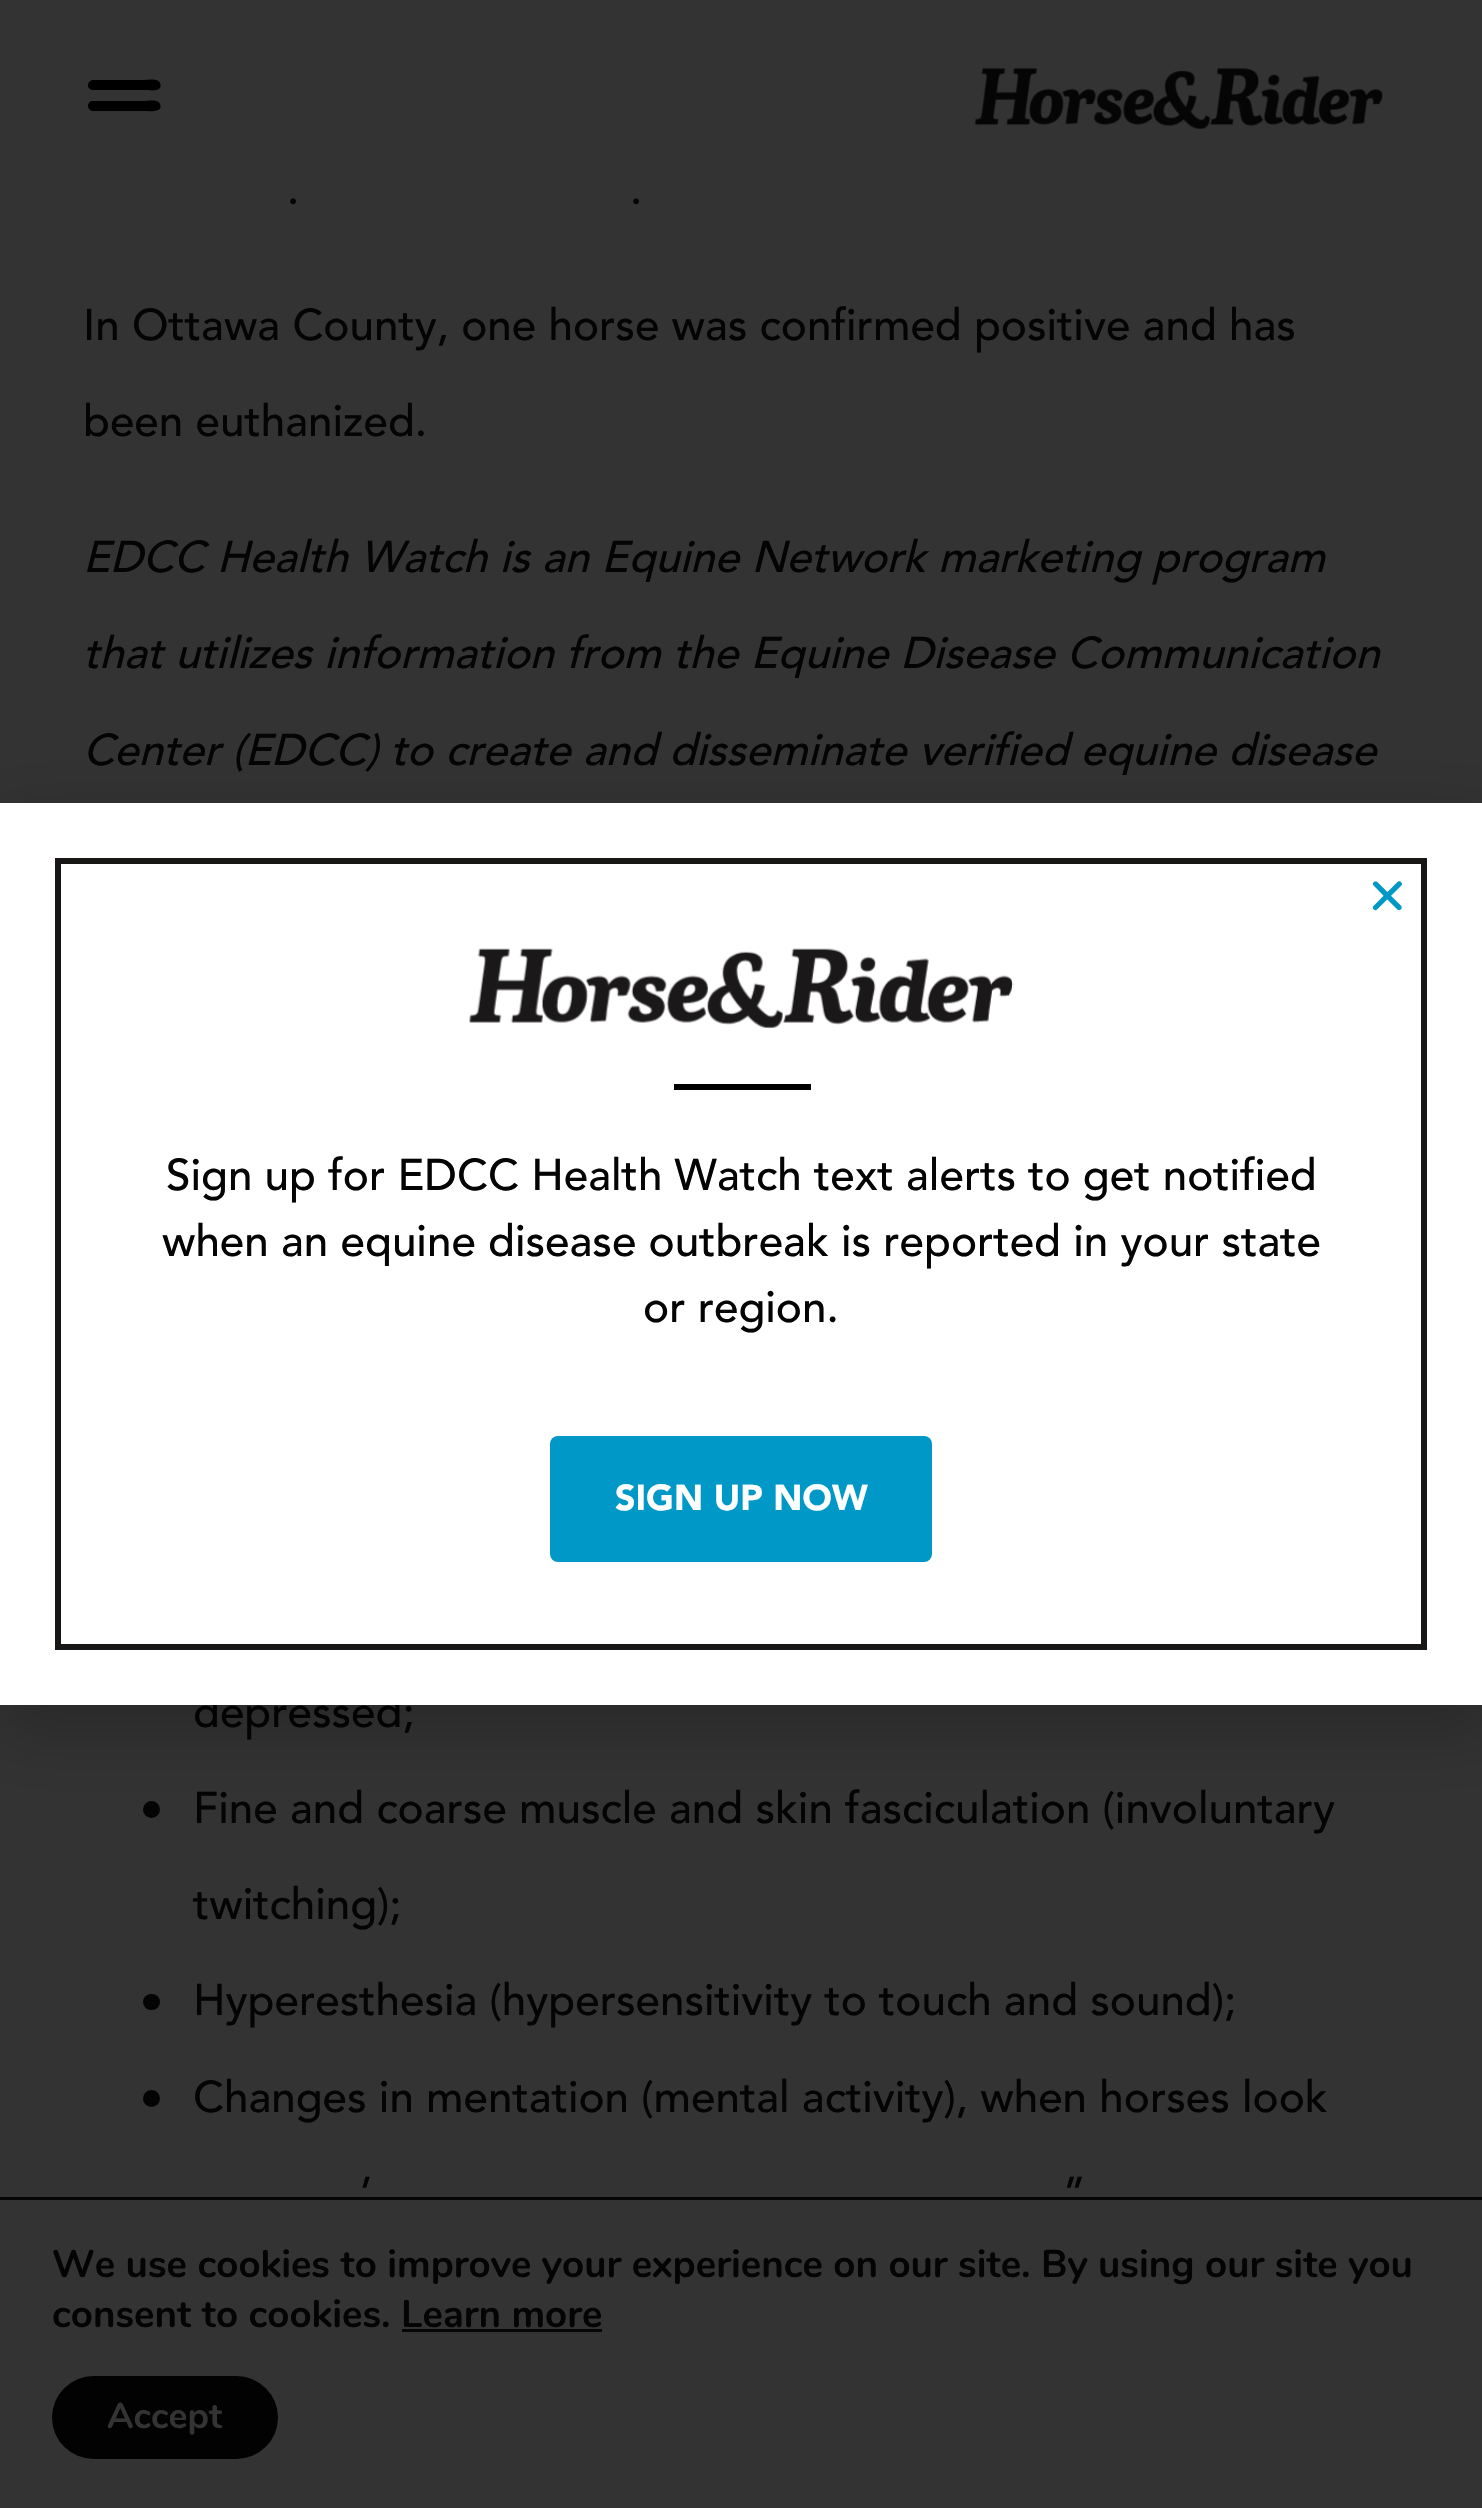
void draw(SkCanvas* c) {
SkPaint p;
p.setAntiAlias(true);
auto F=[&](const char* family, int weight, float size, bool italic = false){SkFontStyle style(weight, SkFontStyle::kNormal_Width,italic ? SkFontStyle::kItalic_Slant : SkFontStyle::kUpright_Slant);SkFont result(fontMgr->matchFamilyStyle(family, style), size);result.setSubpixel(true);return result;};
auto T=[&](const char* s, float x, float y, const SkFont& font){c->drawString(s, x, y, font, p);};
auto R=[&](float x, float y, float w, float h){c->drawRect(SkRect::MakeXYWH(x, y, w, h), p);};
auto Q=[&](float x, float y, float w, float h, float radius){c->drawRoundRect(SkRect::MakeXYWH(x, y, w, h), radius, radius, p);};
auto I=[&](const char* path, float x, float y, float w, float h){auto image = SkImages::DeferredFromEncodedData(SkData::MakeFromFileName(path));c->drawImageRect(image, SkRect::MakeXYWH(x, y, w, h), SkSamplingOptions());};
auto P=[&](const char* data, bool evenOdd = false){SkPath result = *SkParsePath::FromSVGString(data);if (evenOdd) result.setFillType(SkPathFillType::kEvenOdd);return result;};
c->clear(0xff333333);
p.setColor(0xff000000);
c->drawPath(P("M93 101c-6 0-7 8-1 10h53c3 0 19 2 15-7c-2-5-12-3-15-3zm0-21c-6 0-7 9-1 10h53c3 0 19 3 15-7c-2-5-12-3-15-3z"),p);
I("1.png",974,68,409,62);
auto f1 = F("Avenir",500,44);
p.setColor(0xff050404);
T(".",287,204,f1);
T(".",630,204,f1);
T("In Ottawa County, one horse was confirmed positive and has",83,340,f1);
T("been euthanized.",83,436,f1);
auto f2 = F("Avenir",500,44,true);
T("EDCC Health Watch is an Equine Network marketing program",83,572,f2);
T("that utilizes information from the Equine Disease Communication",83,668,f2);
T("Center (EDCC) to create and disseminate verified equine disease",83,765,f2);
T("depressed;",193,1727,f1);
c->drawCircle(151.5,1809.5,8.5,p);
T("Fine and coarse muscle and skin fasciculation (involuntary",193,1823,f1);
T("twitching);",193,1919,f1);
Q(143,1994,17,16,8);
T("Hyperesthesia (hypersensitivity to touch and sound);",193,2015,f1);
c->drawCircle(151.5,2098.5,8.5,p);
T("Changes in mentation (mental activity), when horses look",193,2112,f1);
T("’",360,2208,f1);
T("”",1063,2208,f1);
p.setColor(0x33000000);
p.setMaskFilter(SkMaskFilter::MakeBlur(kNormal_SkBlurStyle, 31.5));
c->drawRect(SkRect::MakeXYWH(-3,817,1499,918),p);
p.setMaskFilter(nullptr);
p.setColor(0xffffffff);
R(0,803,1482,902);
p.setStroke(true);
p.setStrokeWidth(6);
p.setColor(0xff191616);
c->drawRect(SkRect::MakeXYWH(58,861,1366,786),p);
I("2.png",1372,881,30,30);
I("3.png",469,948,545,81);
p.setStroke(false);
p.setColor(0xff000000);
R(674,1084,137,6);
p.setColor(0xff050404);
T("Sign up for EDCC Health Watch text alerts to get notified",166,1190,f1);
T("when an equine disease outbreak is reported in your state",162,1256,f1);
T("or region.",643,1322,f1);
p.setColor(0xff0098c7);
Q(550,1436,382,126,8);
auto f3 = F("Avenir",900,35.75);
p.setColor(0xffffffff);
T("SIGN UP NOW",615,1510,f3);
p.setColor(0xff060606);
R(0,2197,1482,3);
auto f4 = F("Nunito",700,38.5);
p.setColor(0xff050404);
T("We use cookies to improve your experience on our site. By using our site you",52,2277,f4);
T("consent to cookies. Learn more",52,2327,f4);
p.setColor(0xff060606);
R(402,2329,200,3);
p.setColor(0xff020202);
Q(52,2376,226,83,41.5);
auto f5 = F("Nunito",700,35.75);
p.setColor(0xff333333);
T("Accept",107,2428,f5);
}
